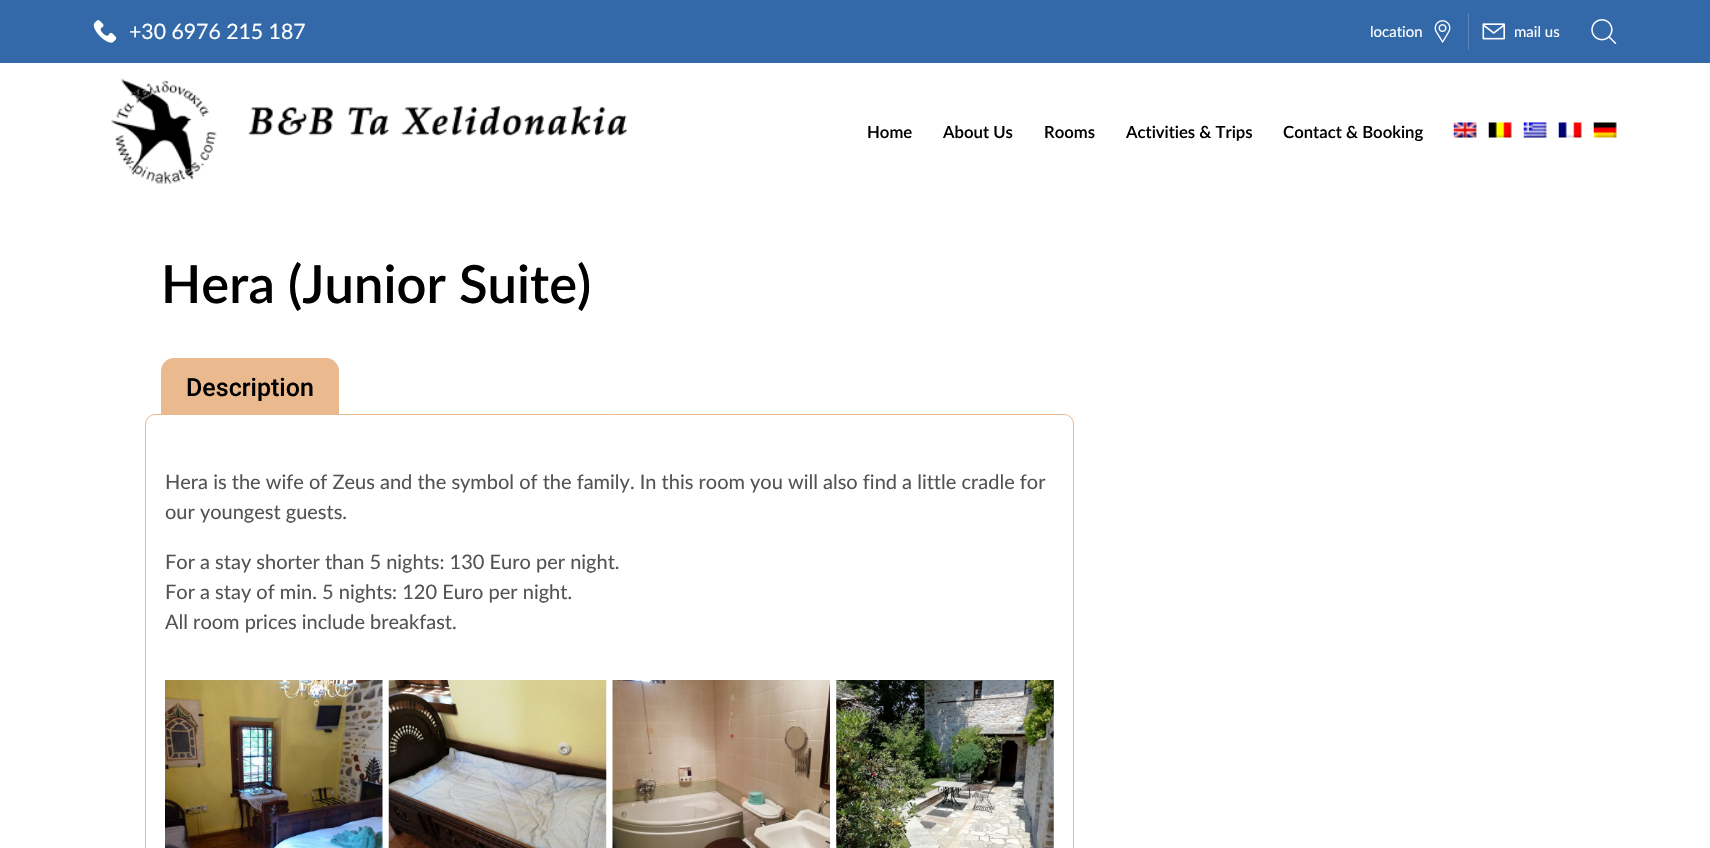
void draw(SkCanvas* c) {
SkPaint p;
p.setAntiAlias(true);
auto F=[&](const char* family, int weight, float size, bool italic = false){SkFontStyle style(weight, SkFontStyle::kNormal_Width,italic ? SkFontStyle::kItalic_Slant : SkFontStyle::kUpright_Slant);SkFont result(fontMgr->matchFamilyStyle(family, style), size);result.setSubpixel(true);return result;};
auto T=[&](const char* s, float x, float y, const SkFont& font){c->drawString(s, x, y, font, p);};
auto R=[&](float x, float y, float w, float h){c->drawRect(SkRect::MakeXYWH(x, y, w, h), p);};
auto I=[&](const char* path, float x, float y, float w, float h){auto image = SkImages::DeferredFromEncodedData(SkData::MakeFromFileName(path));c->drawImageRect(image, SkRect::MakeXYWH(x, y, w, h), SkSamplingOptions());};
auto P=[&](const char* data, bool evenOdd = false){SkPath result = *SkParsePath::FromSVGString(data);if (evenOdd) result.setFillType(SkPathFillType::kEvenOdd);return result;};
c->clear(0xffffffff);
p.setColor(0xff3369a9);
R(0,0,1710,63);
I("1.png",93,20,24,23);
auto f1 = F("Lato",400,21.25);
p.setColor(0xffffffff);
T("+30 6976 215 187",129,39,f1);
auto f2 = F("Lato",400,15);
T("location",1370,37,f2);
I("2.png",1434,20,17,23);
p.setColor(0xff5c87ba);
R(1468,13,1,37);
I("3.png",1482,23,23,17);
p.setColor(0xffffffff);
T("mail us",1514,37,f2);
I("4.png",1591,19,26,25);
I("5.png",111,78,517,106);
auto f3 = F("Lato",600,16.75);
p.setColor(0xff000000);
T("Home",867,138,f3);
T("About Us",943,138,f3);
T("Rooms",1044,138,f3);
T("Activities & Trips",1126,138,f3);
T("Contact & Booking",1283,138,f3);
I("6.png",1453,122,24,16);
I("7.png",1488,122,24,16);
I("8.png",1523,122,24,16);
I("9.png",1558,122,24,16);
I("10.png",1593,122,24,16);
auto f4 = F("Lato",600,52.5);
T("Hera (Junior Suite)",161,303,f4);
p.setColor(0xffeab98d);
c->drawPath(P("M174 358h152c7 0 13 6 13 13v43h-178v-43c0-7 6-13 13-13z"),p);
auto f5 = F("Roboto",500,25);
p.setColor(0xff000000);
T("Description",186,396,f5);
p.setStroke(true);
p.setStrokeWidth(1);
p.setColor(0xffeab98d);
c->drawRoundRect(SkRect::MakeXYWH(145.5,414.5,928,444),9.5,9.5,p);
auto f6 = F("Lato",400,20);
p.setStroke(false);
p.setColor(0xff535353);
T("Hera is the wife of Zeus and the symbol of the family. In this room you will also find a little cradle for",165,489,f6);
T("our youngest guests.",165,519,f6);
T("For a stay shorter than 5 nights: 130 Euro per night.",165,569,f6);
T("For a stay of min. 5 nights: 120 Euro per night.",165,599,f6);
T("All room prices include breakfast.",165,629,f6);
I("11.png",165,680,218,168);
I("12.png",388,680,219,168);
I("13.png",612,680,218,168);
I("14.png",836,680,218,168);
}
